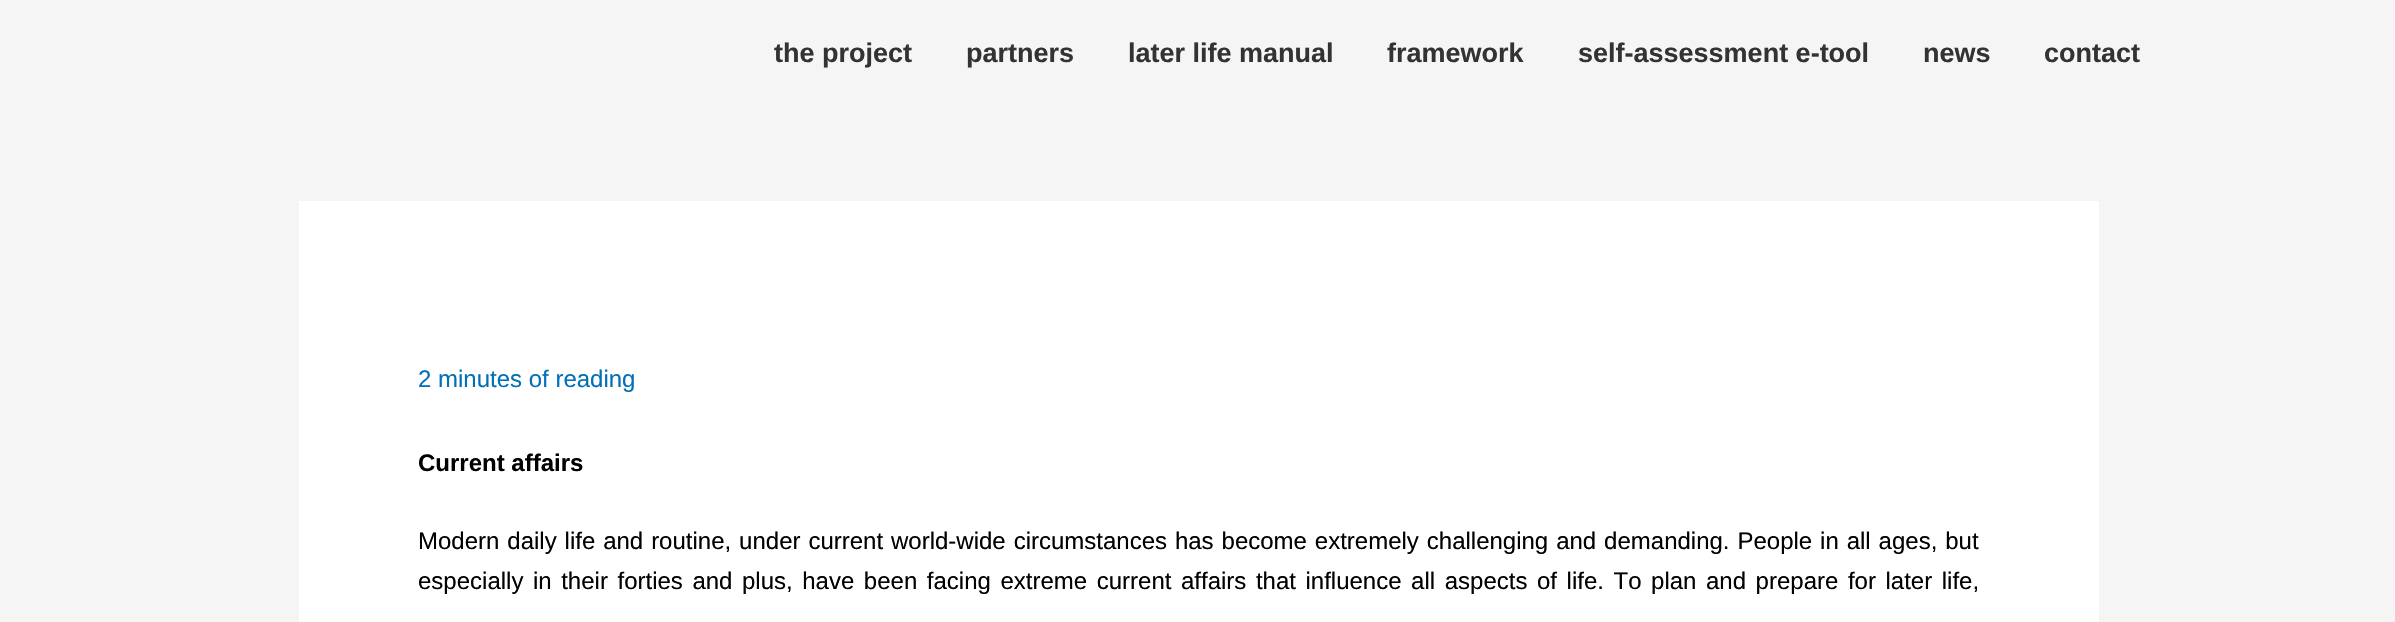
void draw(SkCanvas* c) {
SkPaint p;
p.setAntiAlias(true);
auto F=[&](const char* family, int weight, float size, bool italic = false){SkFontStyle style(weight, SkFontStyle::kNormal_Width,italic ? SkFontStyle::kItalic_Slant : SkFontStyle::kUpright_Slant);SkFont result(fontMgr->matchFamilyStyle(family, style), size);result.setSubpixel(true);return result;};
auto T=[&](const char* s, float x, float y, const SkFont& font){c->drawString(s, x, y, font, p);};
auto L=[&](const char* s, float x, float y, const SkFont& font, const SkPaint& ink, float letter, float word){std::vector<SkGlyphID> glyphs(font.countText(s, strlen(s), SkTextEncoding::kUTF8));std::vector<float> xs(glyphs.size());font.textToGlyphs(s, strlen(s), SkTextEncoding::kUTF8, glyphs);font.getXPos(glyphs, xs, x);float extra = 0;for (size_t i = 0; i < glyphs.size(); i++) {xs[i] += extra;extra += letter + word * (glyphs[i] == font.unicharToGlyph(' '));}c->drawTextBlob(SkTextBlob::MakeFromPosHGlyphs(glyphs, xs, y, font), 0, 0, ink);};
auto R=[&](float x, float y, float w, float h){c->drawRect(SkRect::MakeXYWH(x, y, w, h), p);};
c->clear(0xfff5f5f5);
auto f1 = F("Liberation Sans",700,27);
p.setColor(0xff333333);
T("the project",774,62,f1);
T("partners",966,62,f1);
T("later life manual",1128,62,f1);
T("framework",1387,62,f1);
T("self-assessment e-tool",1578,62,f1);
T("news",1923,62,f1);
T("contact",2044,62,f1);
p.setColor(0xffffffff);
R(299,201,1800,421);
auto f2 = F("Liberation Sans",400,24);
p.setColor(0xff0170b9);
T("2 minutes of reading",418,387,f2);
auto f3 = F("Liberation Sans",700,24);
p.setColor(0xff000000);
T("Current affairs",418,471,f3);
L("Modern daily life and routine, under current world-wide circumstances has become extremely challenging and demanding. People in all ages, but",418,549,f2,p,0,1.25);
L("especially in their forties and plus, have been facing extreme current affairs that influence all aspects of life. To plan and prepare for later life,",418,589,f2,p,0,2.9);
}
